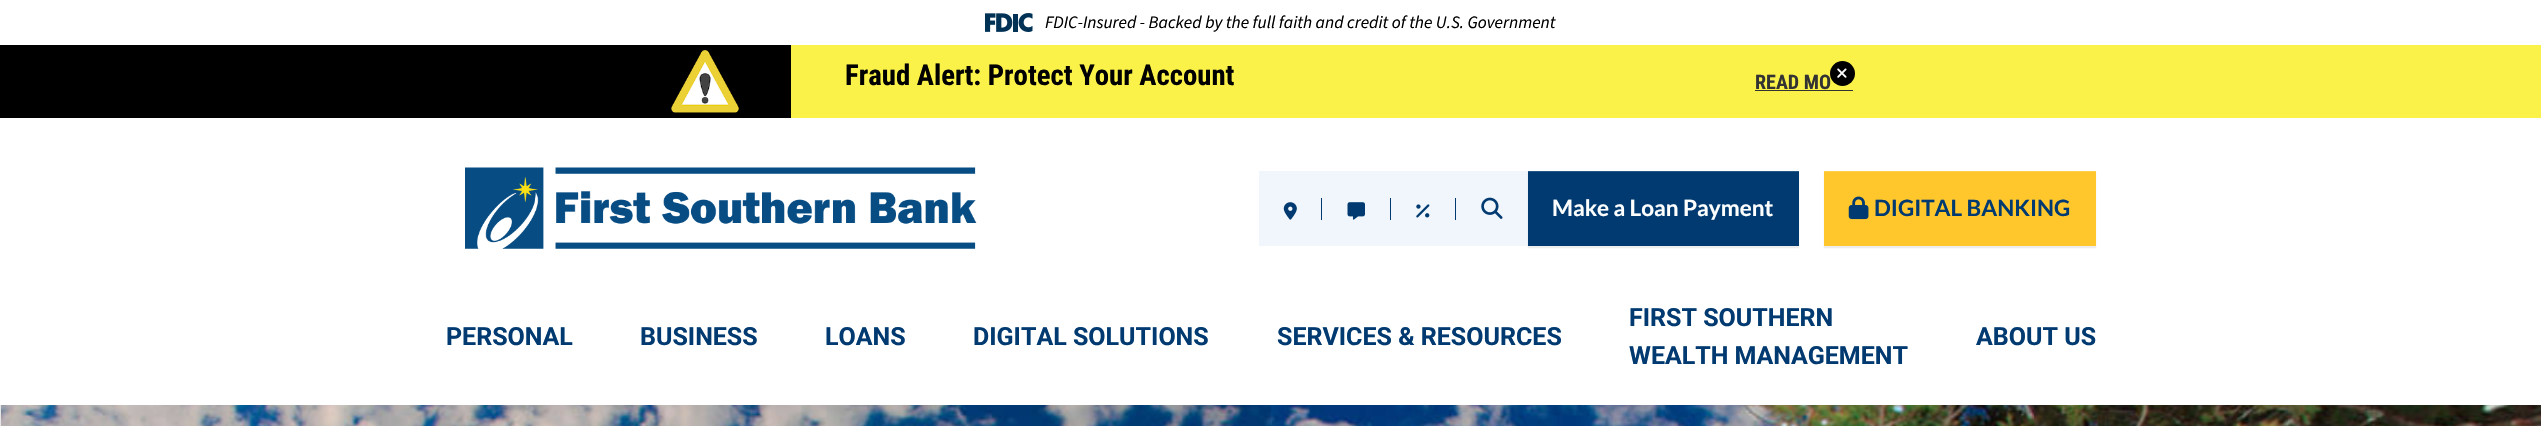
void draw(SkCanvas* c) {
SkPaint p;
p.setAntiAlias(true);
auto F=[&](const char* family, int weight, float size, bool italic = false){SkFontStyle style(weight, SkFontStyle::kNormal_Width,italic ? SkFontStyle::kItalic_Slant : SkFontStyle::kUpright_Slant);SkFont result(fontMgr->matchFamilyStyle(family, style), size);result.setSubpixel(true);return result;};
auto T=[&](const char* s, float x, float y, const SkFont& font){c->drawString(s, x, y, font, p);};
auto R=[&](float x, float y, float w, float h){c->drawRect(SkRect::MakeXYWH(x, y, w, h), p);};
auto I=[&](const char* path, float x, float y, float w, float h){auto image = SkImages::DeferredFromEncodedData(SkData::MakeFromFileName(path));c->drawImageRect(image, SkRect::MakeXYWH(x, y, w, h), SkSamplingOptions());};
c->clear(0xffffffff);
I("1.png",985,13,48,19);
auto f1 = F("Source Sans 3",200,17.5,true);
p.setColor(0xff000000);
T("FDIC-Insured - Backed by the full faith and credit of the U.S. Government",1045,28,f1);
R(0,45,791,73);
p.setColor(0xfffbf249);
R(791,45,1750,73);
I("2.png",671,50,68,63);
auto f2 = F("Roboto Condensed",700,28.75);
p.setColor(0xff000000);
T("Fraud Alert: Protect Your Account",845,85,f2);
auto f3 = F("Roboto Condensed",700,20);
p.setColor(0xff333333);
T("READ MO",1755,89,f3);
R(1755,90,98,1);
p.setColor(0xff000000);
c->drawCircle(1842.5,73.5,12.5,p);
I("3.png",1837,68,10,10);
I("4.png",465,167,512,82);
p.setColor(0xfff0f6fb);
R(1259,171,269,75);
p.setColor(0xff003a70);
R(1321,198,1,22);
I("5.png",1283,202,14,18);
R(1390,198,1,22);
I("6.png",1347,202,18,18);
R(1455,198,1,22);
I("7.png",1416,204,14,14);
I("8.png",1481,197,22,22);
p.setColor(0x12000000);
p.setMaskFilter(SkMaskFilter::MakeBlur(kNormal_SkBlurStyle, .5));
c->drawRect(SkRect::MakeXYWH(1528,173,271,75),p);
p.setMaskFilter(nullptr);
p.setColor(0xff003a70);
R(1528,172,271,74);
p.setColor(0xff265885);
R(1528,171,271,1);
auto f4 = F("Lato",700,22.5);
p.setColor(0xffffffff);
T("Make a Loan Payment",1552,216,f4);
p.setColor(0x12000000);
p.setMaskFilter(SkMaskFilter::MakeBlur(kNormal_SkBlurStyle, .5));
c->drawRect(SkRect::MakeXYWH(1824,173,272,75),p);
p.setMaskFilter(nullptr);
p.setColor(0xffffc72c);
R(1824,172,272,74);
p.setColor(0xffffcf4c);
R(1824,171,272,1);
I("9.png",1848,196,21,24);
p.setColor(0xff003a70);
T("DIGITAL BANKING",1874,216,f4);
auto f5 = F("Roboto",700,25);
T("PERSONAL",446,345,f5);
T("BUSINESS",640,345,f5);
T("LOANS",825,345,f5);
T("DIGITAL SOLUTIONS",973,345,f5);
T("SERVICES & RESOURCES",1277,345,f5);
T("FIRST SOUTHERN",1629,326,f5);
T("WEALTH MANAGEMENT",1629,364,f5);
T("ABOUT US",1976,345,f5);
I("10.png",1,405,2540,21);
p.setColor(0x1a000000);
R(0,405,1271,21);
}
